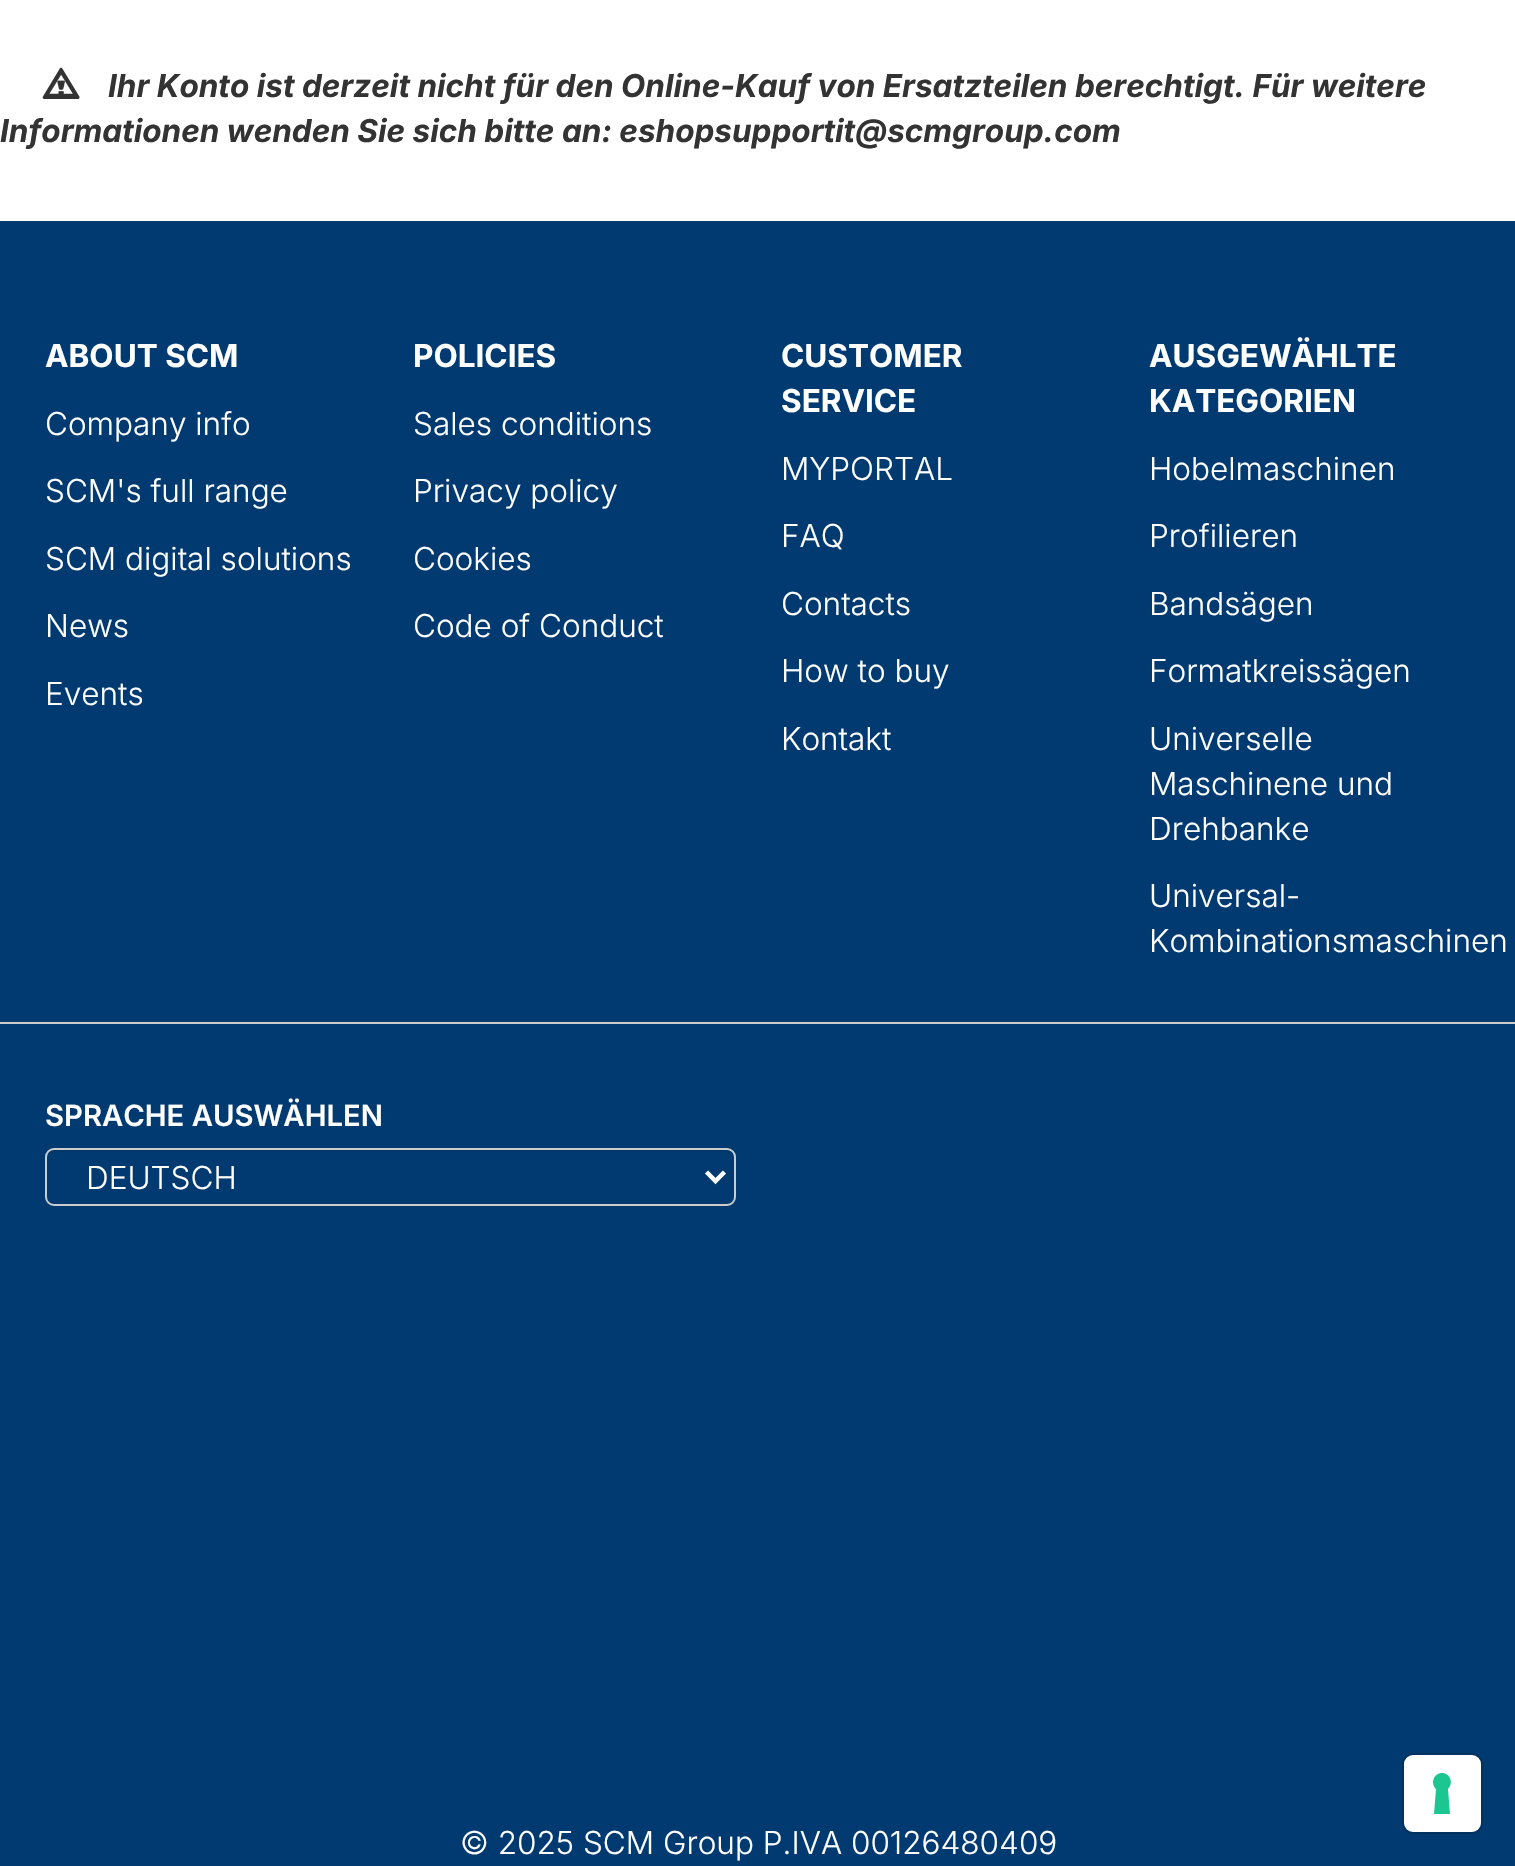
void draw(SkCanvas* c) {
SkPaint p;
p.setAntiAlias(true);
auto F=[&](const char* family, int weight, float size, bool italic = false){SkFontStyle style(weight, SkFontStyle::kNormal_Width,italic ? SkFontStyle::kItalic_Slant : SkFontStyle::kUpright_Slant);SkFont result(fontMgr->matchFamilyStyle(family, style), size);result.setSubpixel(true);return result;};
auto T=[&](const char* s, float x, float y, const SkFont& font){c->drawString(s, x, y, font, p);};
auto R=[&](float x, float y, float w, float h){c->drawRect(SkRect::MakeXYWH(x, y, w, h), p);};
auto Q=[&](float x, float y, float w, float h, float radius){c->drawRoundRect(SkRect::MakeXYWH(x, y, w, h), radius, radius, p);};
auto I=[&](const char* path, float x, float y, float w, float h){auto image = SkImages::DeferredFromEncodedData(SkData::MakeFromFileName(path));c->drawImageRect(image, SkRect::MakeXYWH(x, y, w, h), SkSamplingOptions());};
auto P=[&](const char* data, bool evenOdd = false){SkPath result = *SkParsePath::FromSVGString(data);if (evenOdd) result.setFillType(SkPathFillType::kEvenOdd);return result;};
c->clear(0xffffffff);
I("1.png",42,67,38,32);
auto f1 = F("Inter",700,31.5,true);
p.setColor(0xff333333);
T("Ihr Konto ist derzeit nicht für den Online-Kauf von Ersatzteilen berechtigt. Für weitere",108,97,f1);
T("Informationen wenden Sie sich bitte an: eshopsupportit@scmgroup.com",0,142,f1);
p.setColor(0xff003a70);
R(0,221,1515,1645);
auto f2 = F("Inter",700,31.5);
p.setColor(0xffffffff);
T("ABOUT SCM",45,367,f2);
auto f3 = F("Inter",300,31.5);
T("Company info",45,435,f3);
T("SCM's full range",45,502,f3);
T("SCM digital solutions",45,570,f3);
T("News",45,637,f3);
T("Events",45,705,f3);
T("POLICIES",413,367,f2);
T("Sales conditions",413,435,f3);
T("Privacy policy",413,502,f3);
T("Cookies",413,570,f3);
T("Code of Conduct",413,637,f3);
T("CUSTOMER",781,367,f2);
T("SERVICE",781,412,f2);
T("MYPORTAL",781,480,f3);
T("FAQ",781,547,f3);
T("Contacts",781,615,f3);
T("How to buy",781,682,f3);
T("Kontakt",781,750,f3);
T("AUSGEWÄHLTE",1149,367,f2);
T("KATEGORIEN",1149,412,f2);
T("Hobelmaschinen",1149,480,f3);
T("Profilieren",1149,547,f3);
T("Bandsägen",1149,615,f3);
T("Formatkreissägen",1149,682,f3);
T("Universelle",1149,750,f3);
T("Maschinene und",1149,795,f3);
T("Drehbanke",1149,840,f3);
T("Universal-",1149,907,f3);
T("Kombinationsmaschinen",1149,952,f3);
p.setColor(0xffcccccc);
R(0,1022,1515,2);
auto f4 = F("Inter",600,29.25);
p.setColor(0xffffffff);
T("SPRACHE AUSWÄHLEN",45,1126,f4);
p.setColor(0xff003668);
c->drawPath(P("M54 1152h673c3 0 7 3 7 7v-2c0-4-3-7-7-7h-673c-4 0-7 3-7 7v2c0-4 3-7 7-7z"),p);
p.setStroke(true);
p.setStrokeWidth(2);
p.setColor(0xffcccccc);
c->drawRoundRect(SkRect::MakeXYWH(46,1149,689,56),8,8,p);
p.setStrokeWidth(4.5);
p.setColor(0xffffffff);
c->drawPath(P("M706.5 1172l9 9l9-9"),p);
p.setStroke(false);
T("DEUTSCH",86,1189,f3);
T("© 2025 SCM Group P.IVA 00126480409",460,1854,f3);
p.setStroke(true);
p.setStrokeWidth(2);
p.setColor(0xff00315f);
c->drawRoundRect(SkRect::MakeXYWH(1403,1754,79,79),10,10,p);
p.setStroke(false);
p.setColor(0xffffffff);
Q(1404,1755,77,77,9);
p.setColor(0xff1cc691);
c->drawPath(P("M1442 1773c8 0 12 10 6 16l2 25h-16l2-25c-6-6-2-16 6-16z",true),p);
}
